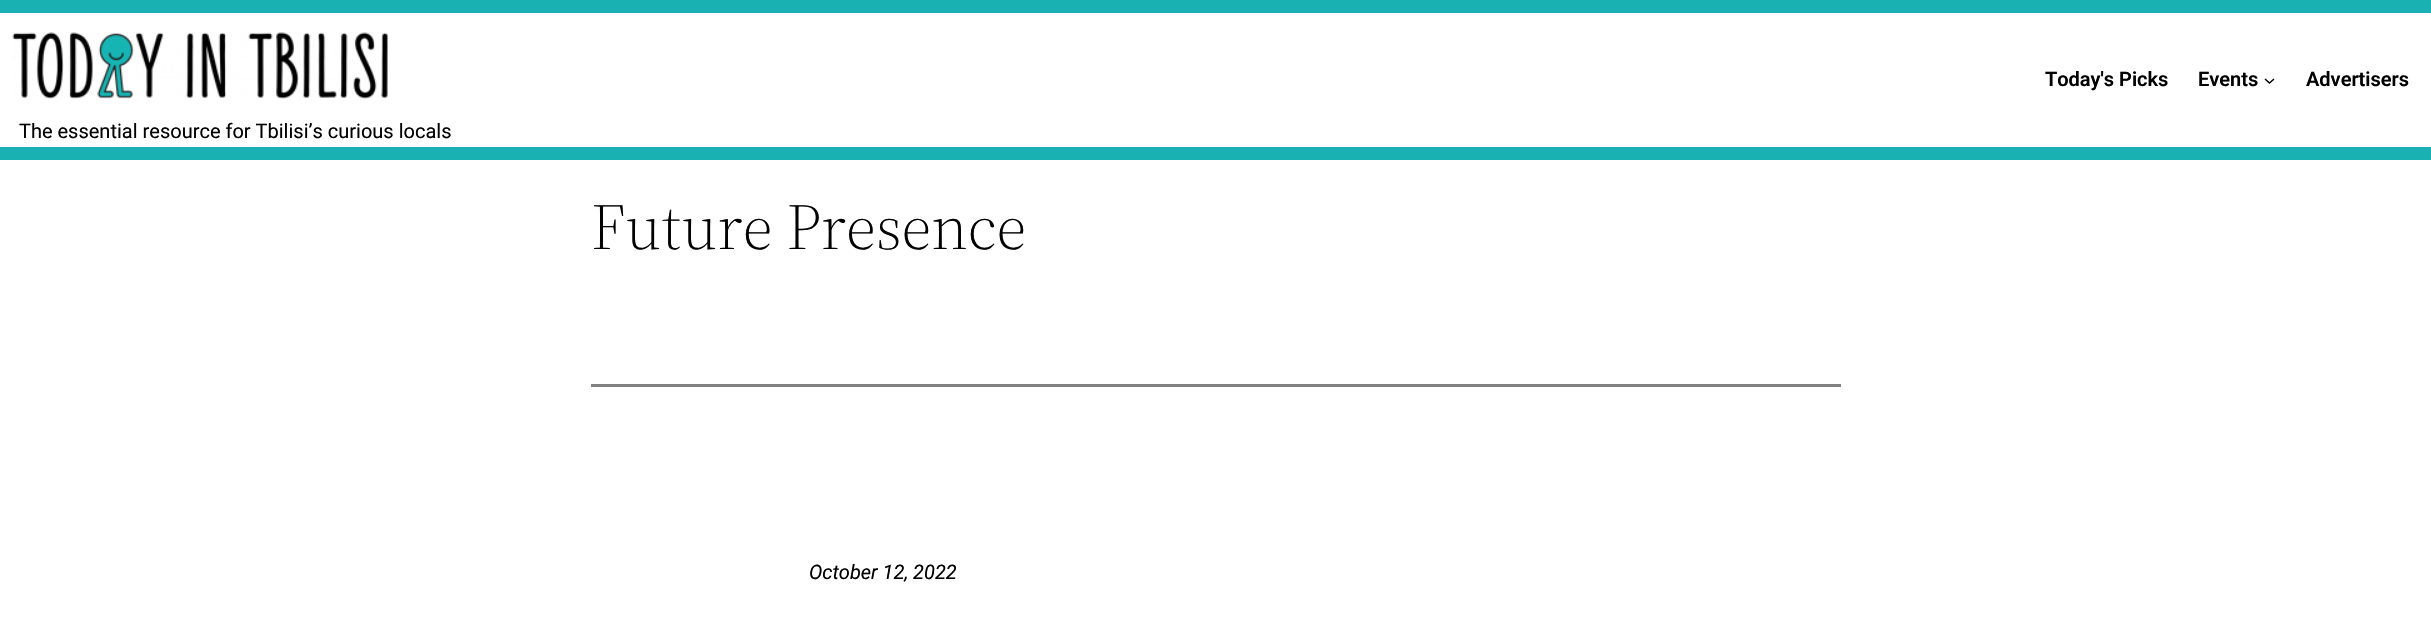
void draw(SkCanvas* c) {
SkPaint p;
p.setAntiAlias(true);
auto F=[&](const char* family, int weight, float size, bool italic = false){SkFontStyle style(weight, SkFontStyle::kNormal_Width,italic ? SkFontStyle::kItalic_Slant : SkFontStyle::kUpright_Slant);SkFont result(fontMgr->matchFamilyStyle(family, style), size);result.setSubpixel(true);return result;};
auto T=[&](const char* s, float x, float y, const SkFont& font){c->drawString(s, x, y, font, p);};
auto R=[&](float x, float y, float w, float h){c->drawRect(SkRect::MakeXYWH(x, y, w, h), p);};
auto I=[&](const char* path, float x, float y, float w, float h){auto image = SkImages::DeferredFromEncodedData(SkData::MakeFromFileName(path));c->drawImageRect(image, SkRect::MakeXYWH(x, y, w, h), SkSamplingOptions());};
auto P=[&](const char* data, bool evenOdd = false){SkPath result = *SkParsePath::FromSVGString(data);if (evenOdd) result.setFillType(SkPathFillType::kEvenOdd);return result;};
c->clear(0xffffffff);
p.setStroke(true);
p.setStrokeWidth(13);
p.setColor(0xff19b1b1);
c->drawRect(SkRect::MakeXYWH(-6.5,6.5,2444,147),p);
auto f1 = F("Roboto",600,20);
p.setStroke(false);
p.setColor(0xff000000);
T("Today's Picks",2045,86,f1);
T("Events",2198,86,f1);
p.setStroke(true);
p.setStrokeWidth(1.5);
c->drawPath(P("M2265 79l4.5 4l4.5-4"),p);
p.setStroke(false);
T("Advertisers",2306,86,f1);
I("1.png",12,32,376,67);
auto f2 = F("Roboto",400,20);
T("The essential resource for Tbilisi’s curious locals",19,138,f2);
auto f3 = F("Source Serif 4",300,65);
T("Future Presence",591,249,f3);
p.setColor(0xff808080);
R(591,384,1250,3);
auto f4 = F("Roboto",400,20,true);
p.setColor(0xff000000);
T("October 12, 2022",809,579,f4);
}
